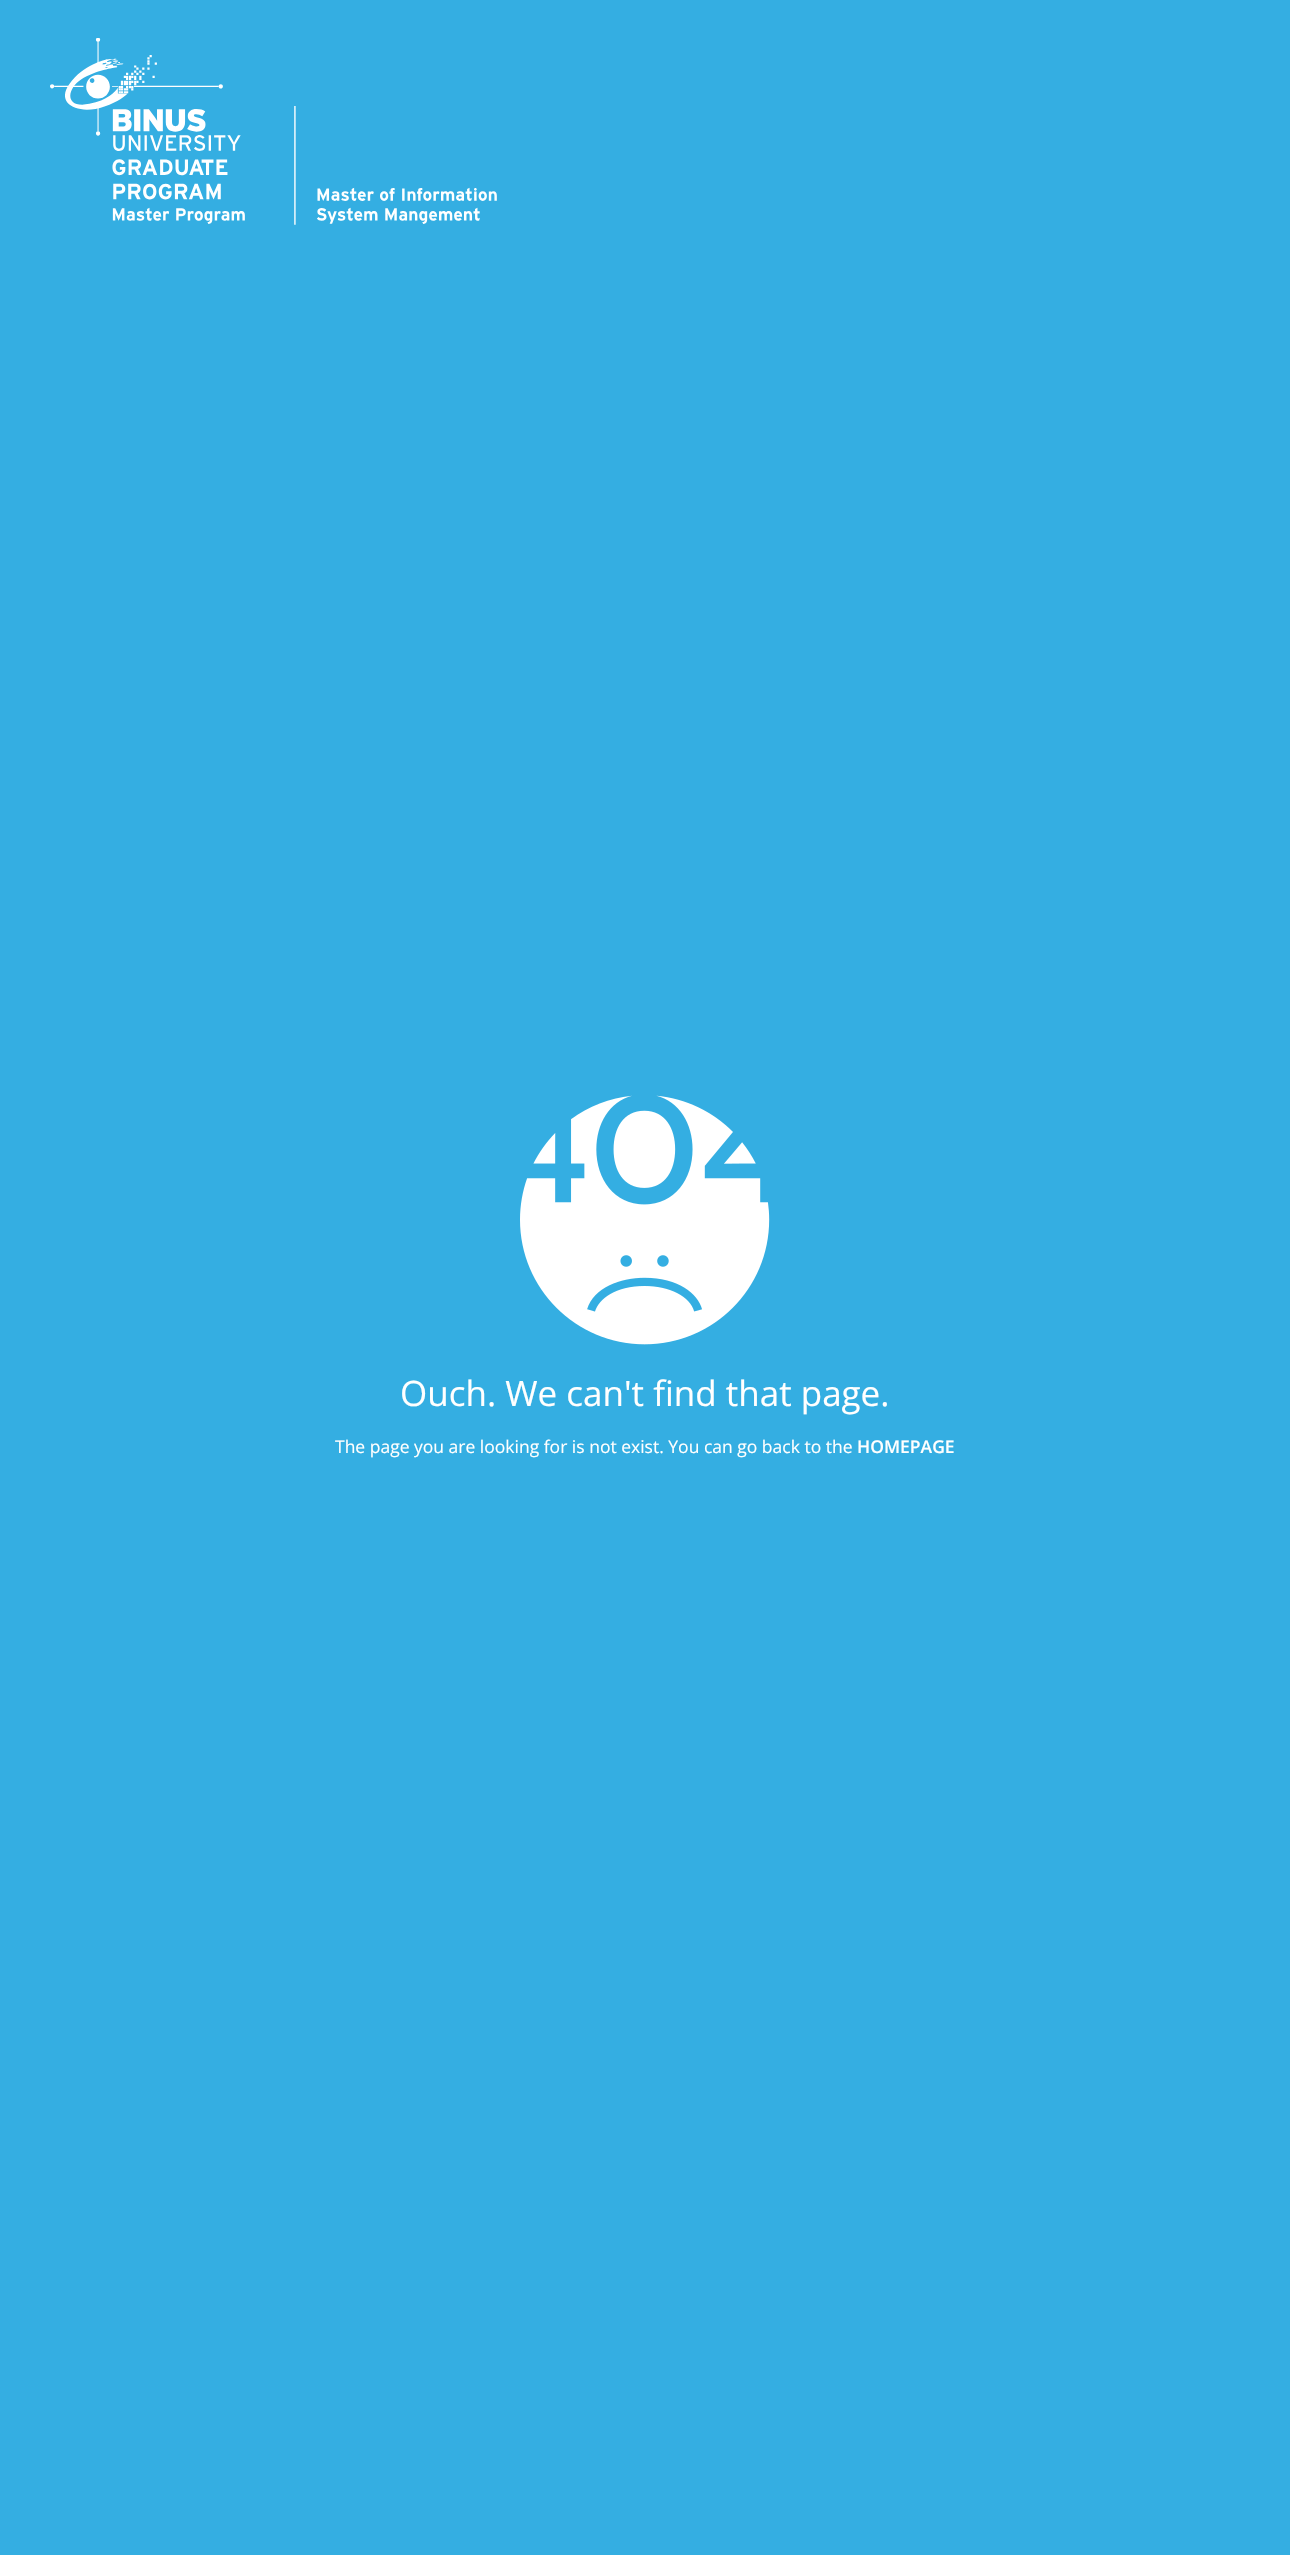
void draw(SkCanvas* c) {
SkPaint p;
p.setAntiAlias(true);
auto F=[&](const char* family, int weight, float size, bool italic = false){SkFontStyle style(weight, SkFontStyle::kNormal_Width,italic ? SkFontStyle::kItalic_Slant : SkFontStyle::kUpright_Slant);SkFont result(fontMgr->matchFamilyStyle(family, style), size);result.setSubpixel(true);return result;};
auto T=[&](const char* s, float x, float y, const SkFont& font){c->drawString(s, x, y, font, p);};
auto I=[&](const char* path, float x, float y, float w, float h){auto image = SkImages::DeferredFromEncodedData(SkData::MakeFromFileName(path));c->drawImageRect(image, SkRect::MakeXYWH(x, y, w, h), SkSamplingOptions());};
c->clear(0xff34aee2);
I("1.png",50,38,447,187);
I("2.png",520,1095,250,250);
auto f1 = F("Open Sans",400,35);
p.setColor(0xffffffff);
T("Ouch. We can't find that page.",400,1406,f1);
auto f2 = F("Open Sans",400,17.5);
T("The page you are looking for is not exist. You can go back to the",335,1453,f2);
auto f3 = F("Open Sans",600,17.5);
T("HOMEPAGE",857,1453,f3);
}
